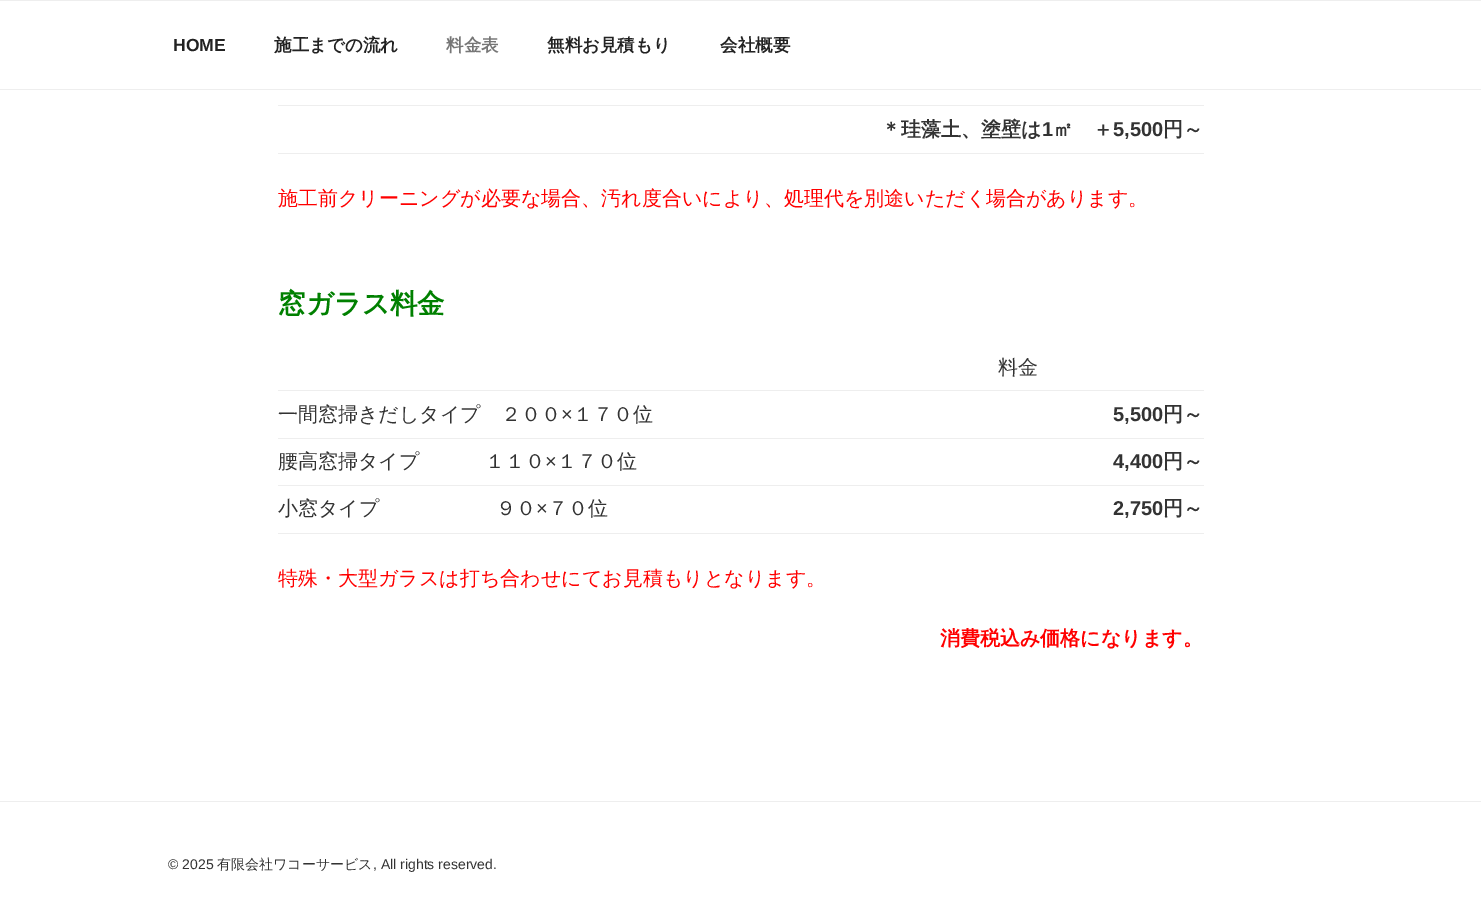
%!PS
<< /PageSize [1481 921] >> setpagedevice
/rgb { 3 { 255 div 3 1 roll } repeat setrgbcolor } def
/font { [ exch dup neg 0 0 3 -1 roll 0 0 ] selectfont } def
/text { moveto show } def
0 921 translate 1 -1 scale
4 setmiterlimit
255 255 255 rgb
0 0 1481 921 rectfill
238 238 238 rgb
0 0 1481 1 rectfill
0 89 1481 1 rectfill
278 105 926 1 rectfill
278 153 926 1 rectfill
278 390 926 1 rectfill
278 438 926 1 rectfill
278 485 926 1 rectfill
278 533 926 1 rectfill
0 801 1481 1 rectfill
/LiberationSans-Bold 17.5 font
34 34 34 rgb
(HOME) 173 51 text
/WenQuanYiZenHei-Bold 17.5 font
(施工までの流れ) 274 51 text
118 118 118 rgb
(料金表) 446 51 text
34 34 34 rgb
(無料お見積もり) 547 51 text
(会社概要) 720 51 text
/WenQuanYiZenHei-Bold 20 font
51 51 51 rgb
(＊珪藻土、塗壁は) 881 136 text
/LiberationSans-Bold 20 font
(1) 1042 136 text
/WenQuanYiZenHei-Bold 20 font
(㎡　＋) 1053 136 text
/LiberationSans-Bold 20 font
(5,500) 1113 136 text
/WenQuanYiZenHei-Bold 20 font
(円～) 1163 136 text
/WenQuanYiZenHei-Medium 20 font
255 0 0 rgb
(施工前クリーニングが必要な場合、汚れ度合いにより、処理代を別途いただく場合があります。) 278 205 text
/WenQuanYiZenHei-Bold 27.5 font
0 128 0 rgb
(窓ガラス料金) 278 313 text
/WenQuanYiZenHei-Medium 20 font
51 51 51 rgb
(料金) 998 374 text
(一間窓掃きだしタイプ　２００) 278 421 text
/LiberationSans-Regular 20 font
(×) 561 421 text
/WenQuanYiZenHei-Medium 20 font
(１７０位) 573 421 text
/LiberationSans-Bold 20 font
(5,500) 1113 421 text
/WenQuanYiZenHei-Bold 20 font
(円～) 1163 421 text
/WenQuanYiZenHei-Medium 20 font
(腰高窓掃タイプ　　　 １１０) 278 468 text
/LiberationSans-Regular 20 font
(×) 545 468 text
/WenQuanYiZenHei-Medium 20 font
(１７０位) 557 468 text
/LiberationSans-Bold 20 font
(4,400) 1113 468 text
/WenQuanYiZenHei-Bold 20 font
(円～) 1163 468 text
/WenQuanYiZenHei-Medium 20 font
(小窓タイプ) 278 515 text
(９０) 496 515 text
/LiberationSans-Regular 20 font
(×) 536 515 text
/WenQuanYiZenHei-Medium 20 font
(７０位) 548 515 text
/LiberationSans-Bold 20 font
(2,750) 1113 515 text
/WenQuanYiZenHei-Bold 20 font
(円～) 1163 515 text
/WenQuanYiZenHei-Medium 20 font
255 0 0 rgb
(特殊・大型ガラスは打ち合わせにてお見積もりとなります。) 278 585 text
/WenQuanYiZenHei-Bold 20 font
(消費税込み価格になります。) 940 645 text
/LiberationSans-Regular 14 font
51 51 51 rgb
(© 2025) 168 869 text
/WenQuanYiZenHei-Medium 14 font
(有限会社ワコーサービス) 217 869 text
/LiberationSans-Regular 14 font
(, All rights reserved.) 373 869 text
showpage
